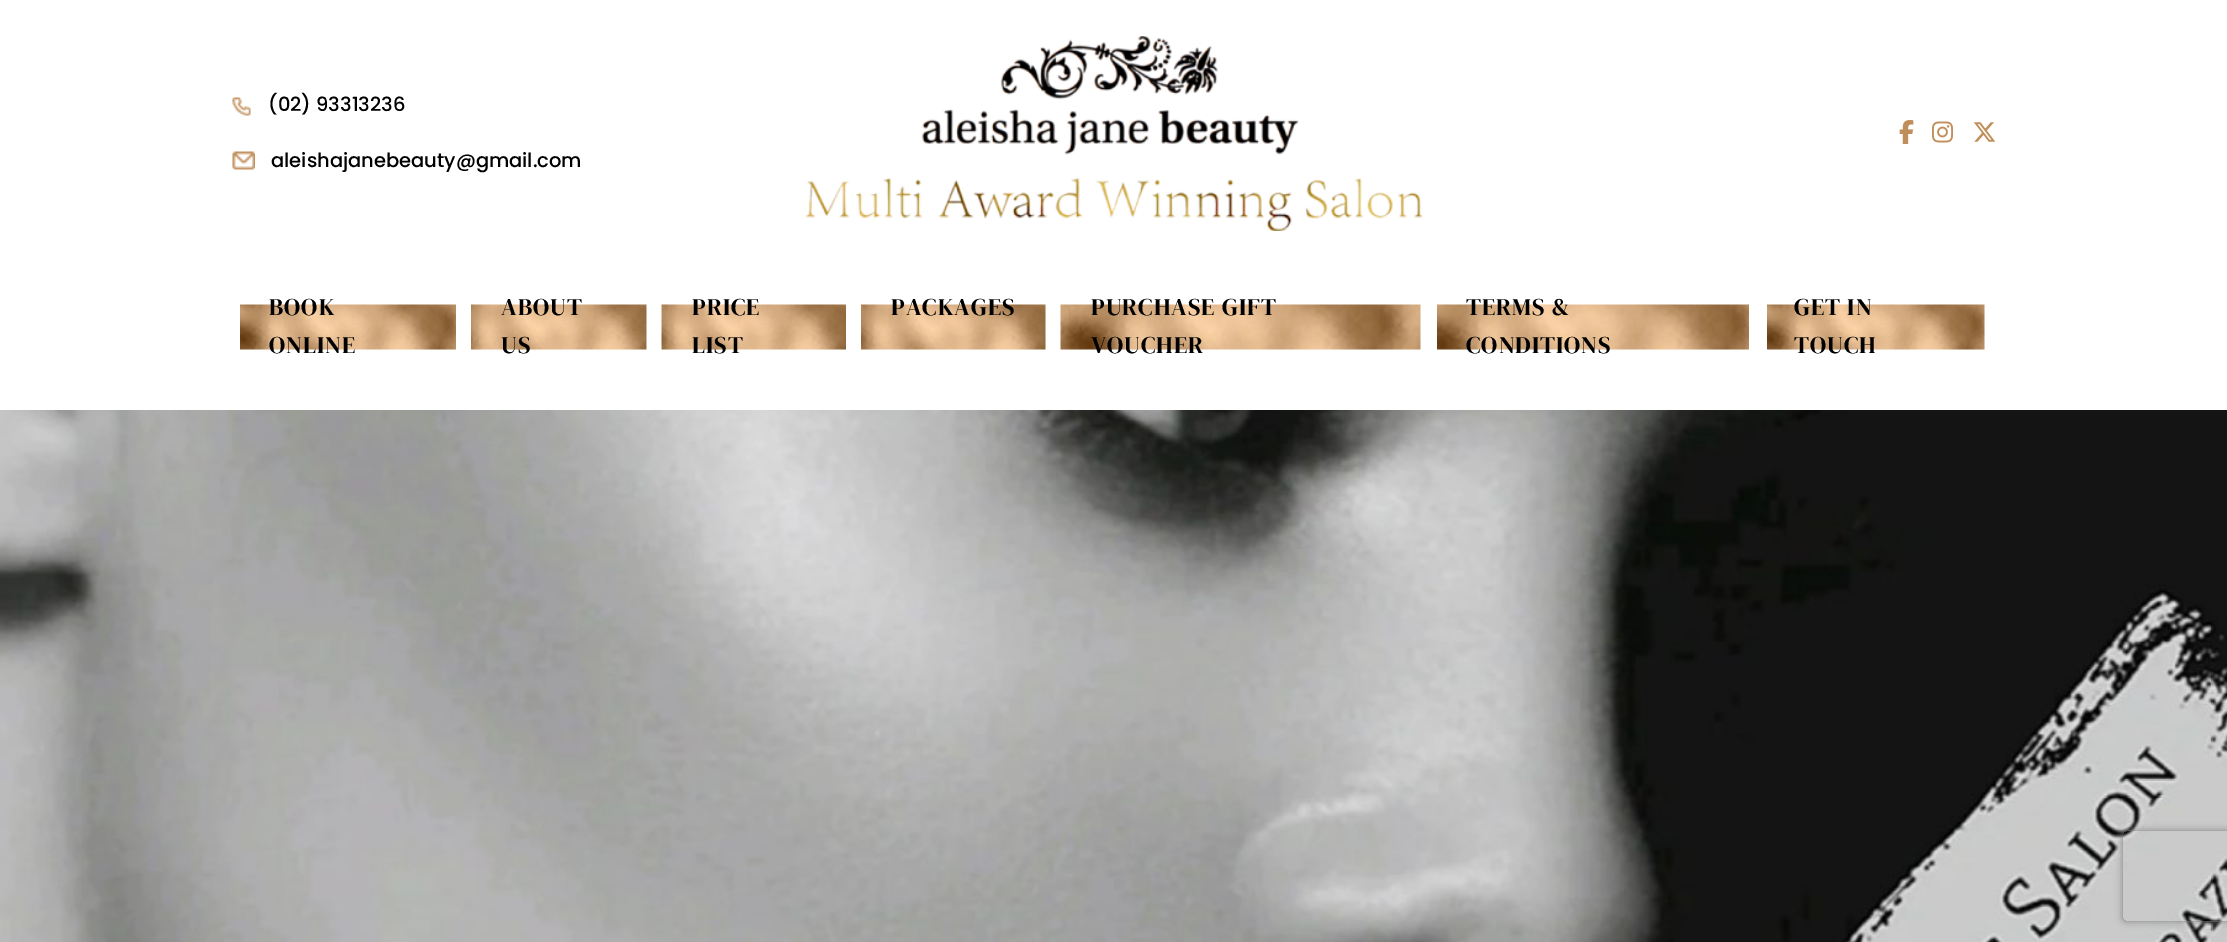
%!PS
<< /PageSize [2227 942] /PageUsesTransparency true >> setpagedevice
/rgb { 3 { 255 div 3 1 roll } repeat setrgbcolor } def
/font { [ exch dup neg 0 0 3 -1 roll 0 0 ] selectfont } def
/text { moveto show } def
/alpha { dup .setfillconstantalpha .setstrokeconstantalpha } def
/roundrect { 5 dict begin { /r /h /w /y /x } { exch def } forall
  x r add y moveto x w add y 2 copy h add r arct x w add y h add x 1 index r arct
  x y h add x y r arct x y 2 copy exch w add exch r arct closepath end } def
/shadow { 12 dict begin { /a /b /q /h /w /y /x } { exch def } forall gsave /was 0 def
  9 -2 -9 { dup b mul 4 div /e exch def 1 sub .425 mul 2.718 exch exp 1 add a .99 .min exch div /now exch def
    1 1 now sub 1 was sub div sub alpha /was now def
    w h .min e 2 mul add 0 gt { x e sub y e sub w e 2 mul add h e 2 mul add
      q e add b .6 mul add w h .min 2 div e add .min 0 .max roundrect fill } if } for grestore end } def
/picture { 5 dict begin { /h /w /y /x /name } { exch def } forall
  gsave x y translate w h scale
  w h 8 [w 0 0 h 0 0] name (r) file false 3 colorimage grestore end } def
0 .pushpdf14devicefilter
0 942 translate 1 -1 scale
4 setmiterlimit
255 255 255 rgb
0 0 2227 942 rectfill
(img_01.rgb) 232 97 19 19 picture
(img_02.rgb) 232 151 23 19 picture
(img_03.rgb) 805 36 617 195 picture
(img_04.rgb) 1899 120 15 24 picture
(img_05.rgb) 1932 121 21 22 picture
(img_06.rgb) 1973 122 23 20 picture
(img_07.rgb) 240 304 216 46 picture
(img_08.rgb) 471 304 176 46 picture
(img_09.rgb) 661 304 185 46 picture
(img_10.rgb) 861 304 185 46 picture
(img_11.rgb) 1060 304 361 46 picture
(img_12.rgb) 1437 304 312 46 picture
(img_13.rgb) 1767 304 218 46 picture
(img_14.rgb) 0 410 2227 532 picture
gsave
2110 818 moveto 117 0 rlineto 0 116 rlineto -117 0 rlineto closepath 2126 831 moveto 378 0 rlineto 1.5 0 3 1.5 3 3 rcurveto 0 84 rlineto 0 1.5 -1.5 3 -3 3 rcurveto -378 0 rlineto -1.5 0 -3 -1.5 -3 -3 rcurveto 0 -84 rlineto 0 -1.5 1.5 -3 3 -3 rcurveto closepath eoclip newpath
128 128 128 rgb
2123 831 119 90 3 4 1 shadow
grestore
/Poppins-Medium 19.5 font
0 0 0 rgb
(\(02\) 93313236) 268 111 text
(aleishajanebeauty@gmail.com) 271 167 text
/DMSerifDisplay-Regular 24 font
269 315 moveto 1 0 (BOOK) ashow
269 353 moveto 1 0 (ONLINE) ashow
501 315 moveto 1 0 (ABOUT) ashow
501 353 moveto 1 0 (US) ashow
692 315 moveto 1 0 (PRICE) ashow
692 353 moveto 1 0 (LIST) ashow
891 315 moveto 1 0 (PACKAGES) ashow
1091 315 moveto 1 0 (PURCHASE GIFT) ashow
1091 353 moveto 1 0 (VOUCHER) ashow
1466 315 moveto 1 0 (TERMS &) ashow
1466 353 moveto 1 0 (CONDITIONS) ashow
1794 315 moveto 1 0 (GET IN) ashow
1794 353 moveto 1 0 (TOUCH) ashow
.poppdf14devicefilter showpage
